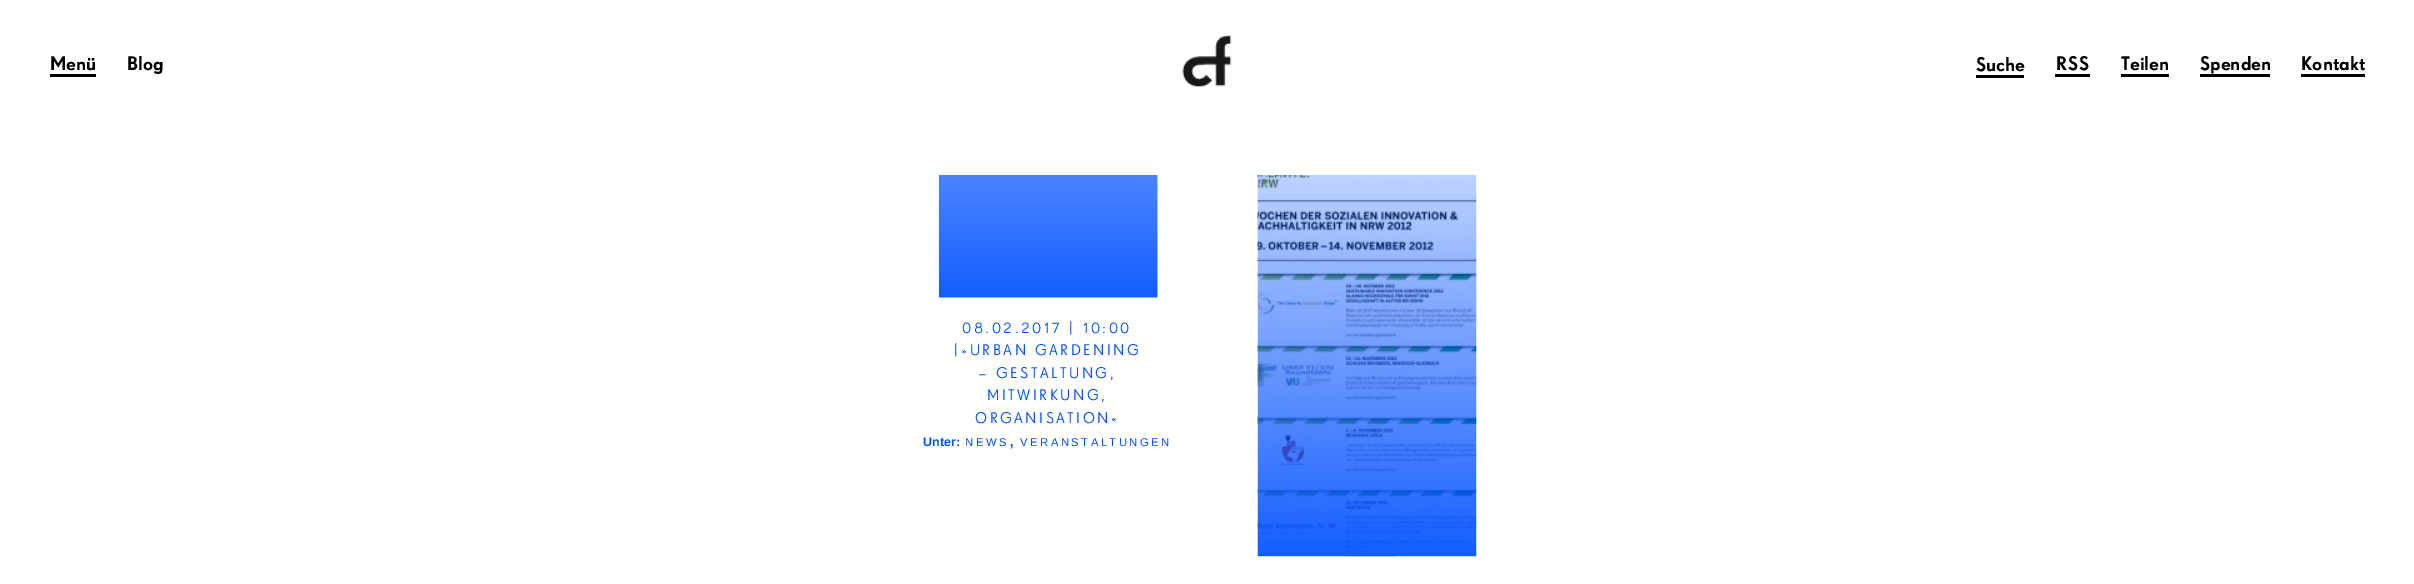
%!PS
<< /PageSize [2414 584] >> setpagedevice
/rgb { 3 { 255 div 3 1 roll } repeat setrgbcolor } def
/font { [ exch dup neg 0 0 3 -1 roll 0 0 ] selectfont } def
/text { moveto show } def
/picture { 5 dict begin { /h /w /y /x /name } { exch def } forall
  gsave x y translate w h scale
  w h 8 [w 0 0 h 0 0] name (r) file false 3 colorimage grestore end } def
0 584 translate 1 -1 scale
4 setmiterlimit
255 255 255 rgb
0 0 2414 584 rectfill
0 0 0 rgb
50 74 46 3 rectfill
(img_01.rgb) 1182 35 50 52 picture
1976 75 48 3 rectfill
2055 74 35 3 rectfill
2121 74 48 3 rectfill
2200 74 70 3 rectfill
2301 74 64 3 rectfill
(img_02.rgb) 938 175 220 123 picture
(img_03.rgb) 1257 175 220 382 picture
(img_04.rgb) 1257 175 220 382 picture
/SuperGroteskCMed-Regular 19 font
(Menü) 50 70 text
(Blog) 127 70 text
(Suche) 1976 71 text
2056 70 moveto 1 0 (RSS) ashow
(Teilen) 2121 70 text
(Spenden) 2200 70 text
(Kontakt) 2301 70 text
/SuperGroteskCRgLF-Regular 15 font
0 80 255 rgb
962 333 moveto 2.5 0 (08.02.2017 | 10:00) ashow
953 355 moveto 2.5 0 (|»URBAN GARDENING) ashow
978 378 moveto 2.5 0 (– GESTALTUNG,) ashow
987 400 moveto 2.5 0 (MITWIRKUNG,) ashow
975 423 moveto 2.5 0 (ORGANISATION«) ashow
/LiberationSans-Bold 12.5 font
(Unter:) 923 446 text
/LiberationSans-Regular 11.25 font
965 446 moveto 2.5 0 (NEWS) ashow
/LiberationSans-Regular 19 font
(,) 1009 446 text
/LiberationSans-Regular 11.25 font
1020 446 moveto 2.5 0 (VERANSTALTUNGEN) ashow
showpage
